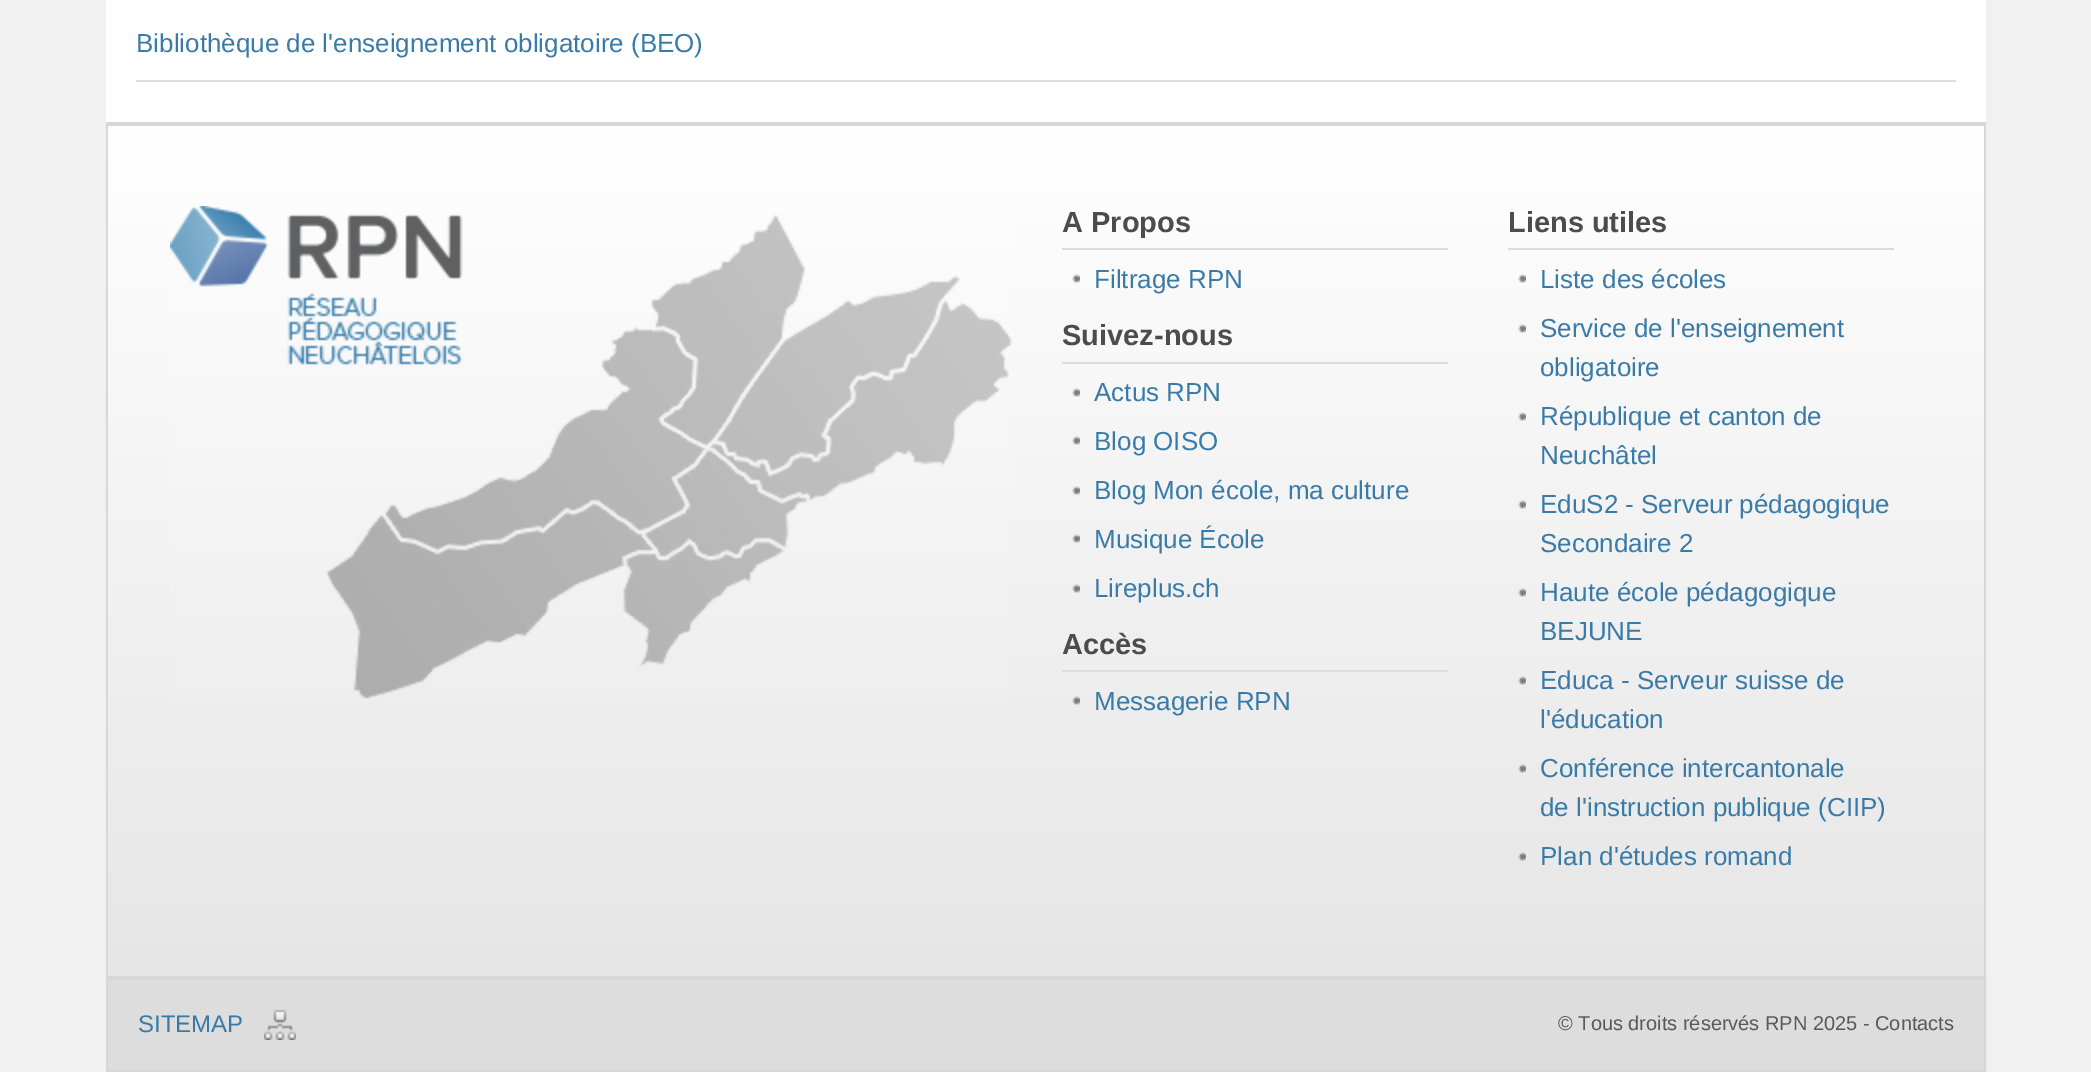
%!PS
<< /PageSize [2091 1072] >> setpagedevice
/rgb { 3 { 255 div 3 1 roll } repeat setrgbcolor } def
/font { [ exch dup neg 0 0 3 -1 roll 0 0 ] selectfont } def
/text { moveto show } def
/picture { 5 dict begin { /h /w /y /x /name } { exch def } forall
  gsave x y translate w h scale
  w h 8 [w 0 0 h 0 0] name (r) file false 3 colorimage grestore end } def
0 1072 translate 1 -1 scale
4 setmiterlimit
241 241 241 rgb
0 0 2091 1072 rectfill
255 255 255 rgb
106 0 1880 122 rectfill
220 220 220 rgb
136 80 1820 2 rectfill
gsave 108 126 moveto 1876 0 rlineto 0 850 rlineto -1876 0 rlineto closepath clip newpath
<< /ShadingType 2 /ColorSpace /DeviceRGB /Coords [1046 126 1046 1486] /Extend [true true] /Function << /FunctionType 2 /Domain [0 1] /C0 [1 1 1] /C1 [0.843 0.843 0.843] /N 1 >> >> shfill grestore
215 215 215 rgb
106 122 1880 4 rectfill
1984 122 2 856 rectfill
106 976 1880 2 rectfill
106 122 2 856 rectfill
(img_01.rgb) 170 206 842 493 picture
220 220 220 rgb
1062 248 386 2 rectfill
(img_02.rgb) 1072 274 8 9 picture
1062 362 386 2 rectfill
(img_03.rgb) 1072 388 8 9 picture
(img_04.rgb) 1072 436 8 9 picture
(img_05.rgb) 1072 486 8 9 picture
(img_06.rgb) 1072 534 8 9 picture
(img_07.rgb) 1072 584 8 9 picture
1062 670 386 2 rectfill
(img_08.rgb) 1072 696 8 9 picture
1508 248 386 2 rectfill
(img_02.rgb) 1518 274 8 9 picture
(img_09.rgb) 1518 324 8 9 picture
(img_10.rgb) 1518 412 8 9 picture
(img_05.rgb) 1518 500 8 9 picture
(img_11.rgb) 1518 588 8 9 picture
(img_12.rgb) 1518 676 8 9 picture
(img_13.rgb) 1518 764 8 9 picture
(img_14.rgb) 1518 852 8 9 picture
221 221 221 rgb
107 979 moveto 1878 0 rlineto 0 92 rlineto -1878 0 rlineto closepath gsave fill grestore
215 215 215 rgb
2 setlinewidth
stroke
(img_15.rgb) 264 1010 32 30 picture
/LiberationSans-Regular 26 font
56 123 169 rgb
(Bibliothèque de l'enseignement obligatoire \(BEO\)) 136 52 text
/LiberationSans-Bold 29 font
76 76 76 rgb
(A Propos) 1062 232 text
/LiberationSans-Regular 26 font
56 123 169 rgb
(Filtrage RPN) 1094 288 text
/LiberationSans-Bold 29 font
76 76 76 rgb
(Suivez-nous) 1062 345 text
/LiberationSans-Regular 26 font
56 123 169 rgb
(Actus RPN) 1094 401 text
(Blog OISO) 1094 450 text
(Blog Mon école, ma culture) 1094 499 text
(Musique École) 1094 548 text
(Lireplus.ch) 1094 597 text
/LiberationSans-Bold 29 font
76 76 76 rgb
(Accès) 1062 654 text
/LiberationSans-Regular 26 font
56 123 169 rgb
(Messagerie RPN) 1094 710 text
/LiberationSans-Bold 29 font
76 76 76 rgb
(Liens utiles) 1508 232 text
/LiberationSans-Regular 26 font
56 123 169 rgb
(Liste des écoles) 1540 288 text
(Service de l'enseignement) 1540 337 text
(obligatoire) 1540 376 text
(République et canton de) 1540 425 text
(Neuchâtel) 1540 464 text
(EduS2 - Serveur pédagogique) 1540 513 text
(Secondaire 2) 1540 552 text
(Haute école pédagogique) 1540 601 text
(BEJUNE) 1540 640 text
(Educa - Serveur suisse de) 1540 689 text
(l'éducation) 1540 728 text
(Conférence intercantonale) 1540 777 text
(de l'instruction publique \(CIIP\)) 1540 816 text
(Plan d'études romand) 1540 865 text
/LiberationSans-Regular 24 font
(SITEMAP) 138 1032 text
/LiberationSans-Regular 20 font
89 89 89 rgb
(© Tous droits réservés RPN 2025 - Contacts) 1558 1030 text
showpage
